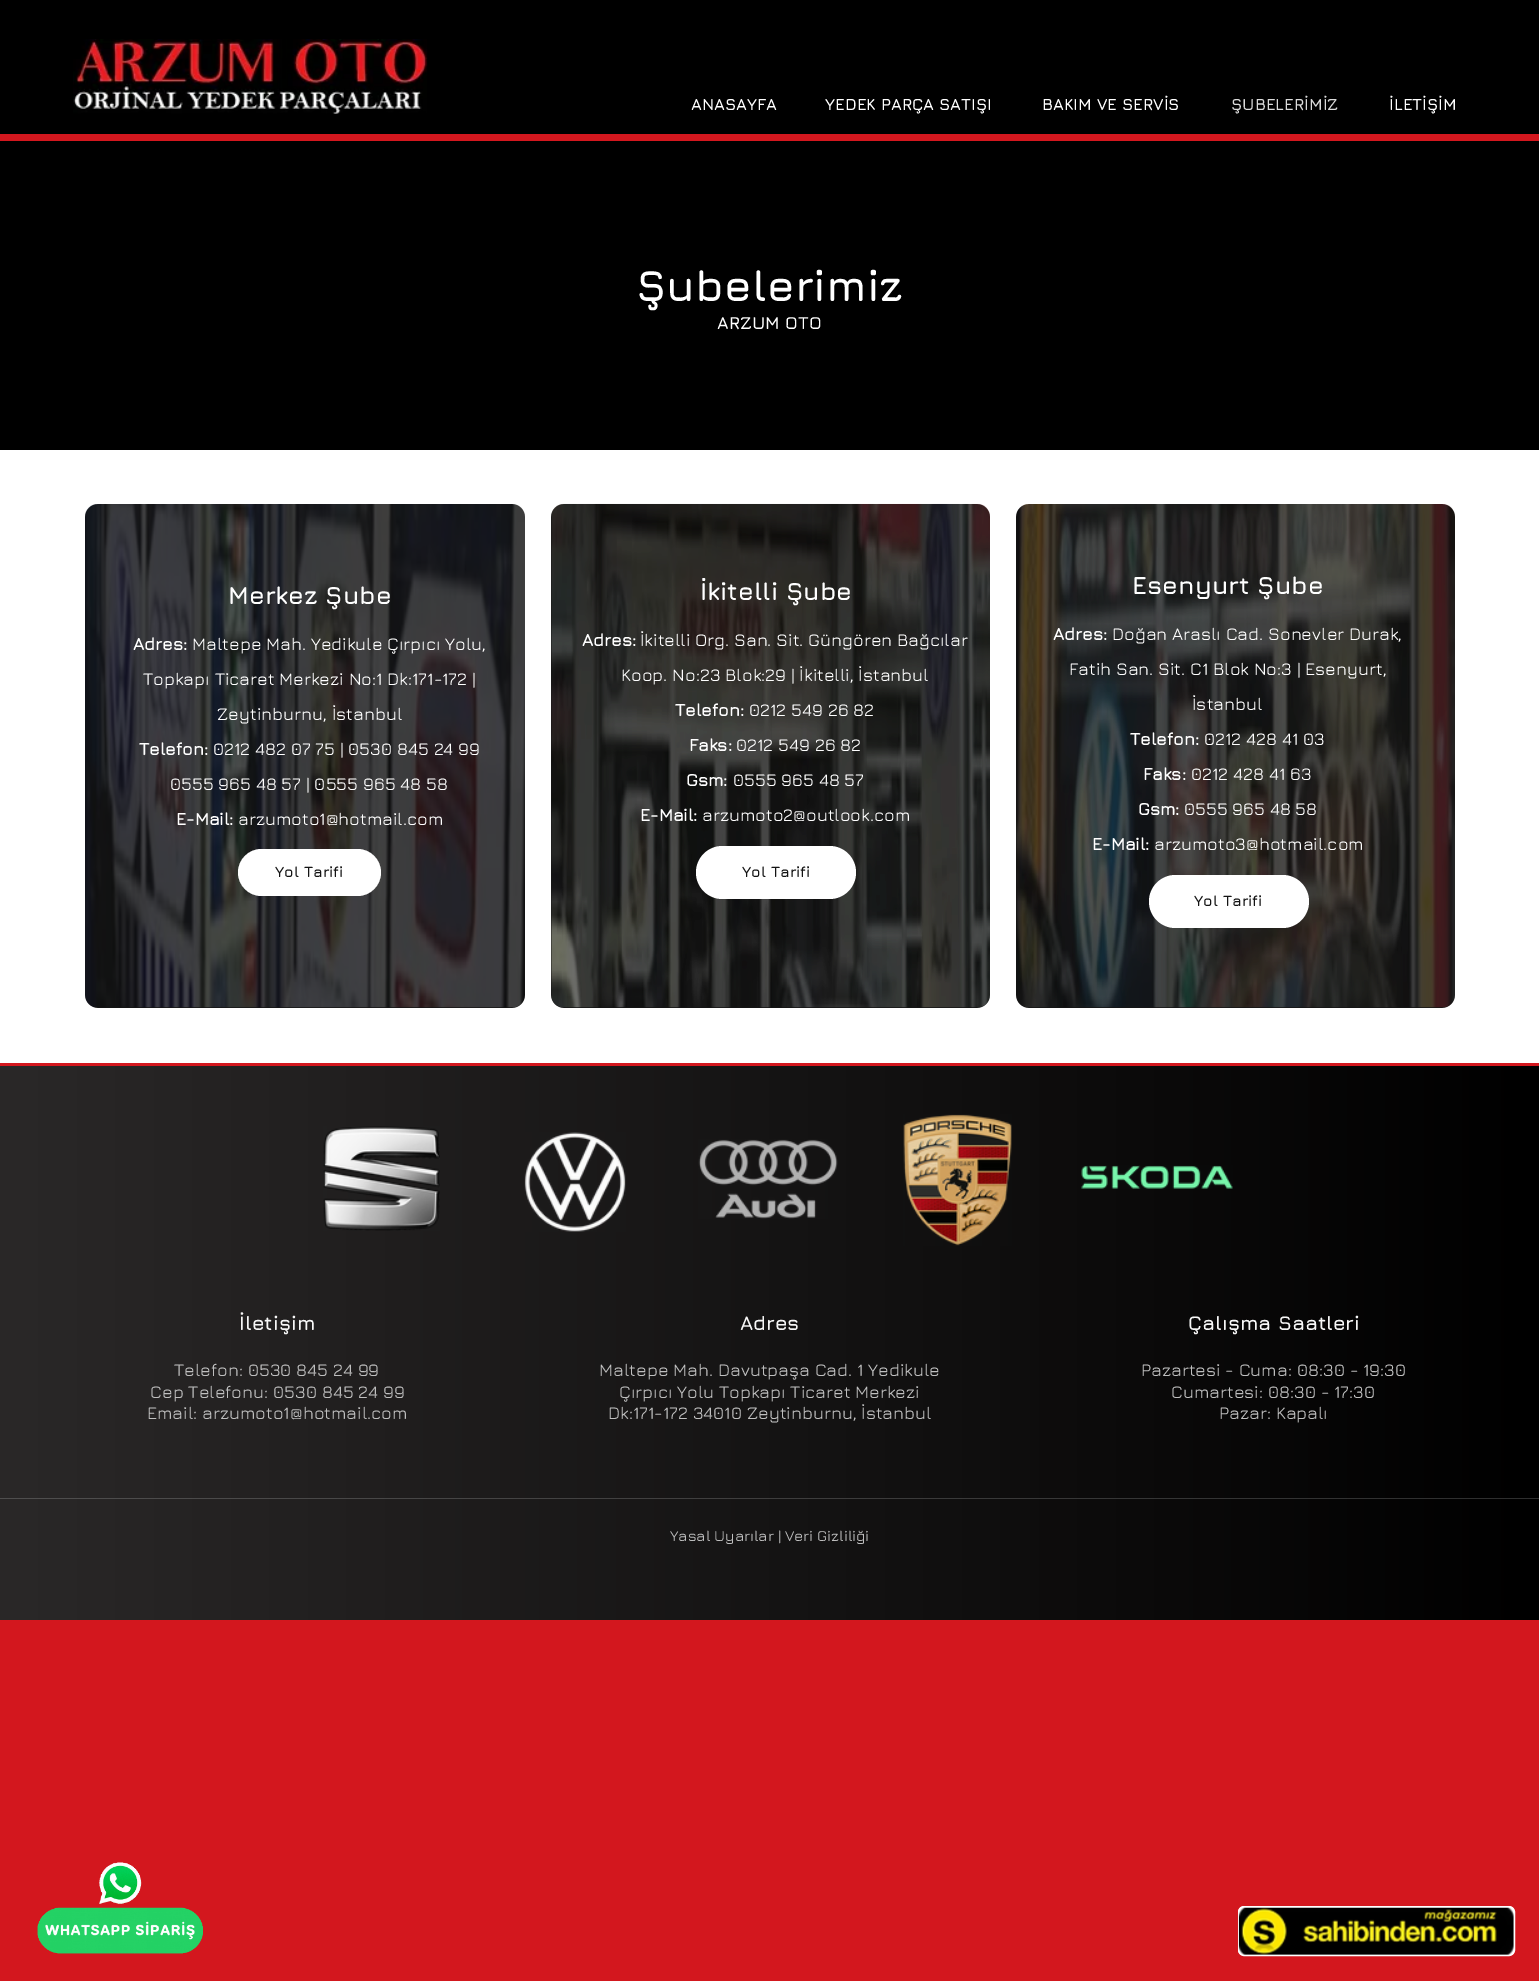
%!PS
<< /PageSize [1539 1981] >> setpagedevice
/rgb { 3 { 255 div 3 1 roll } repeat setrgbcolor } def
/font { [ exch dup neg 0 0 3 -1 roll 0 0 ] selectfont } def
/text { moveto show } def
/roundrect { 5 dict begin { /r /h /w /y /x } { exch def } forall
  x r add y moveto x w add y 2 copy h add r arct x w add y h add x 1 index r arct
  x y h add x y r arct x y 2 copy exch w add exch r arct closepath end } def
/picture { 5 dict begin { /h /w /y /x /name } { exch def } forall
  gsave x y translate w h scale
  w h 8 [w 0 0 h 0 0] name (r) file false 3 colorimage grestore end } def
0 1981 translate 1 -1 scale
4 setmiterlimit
211 23 30 rgb
0 0 1539 1981 rectfill
0 0 0 rgb
0 0 1539 134 rectfill
(img_01.rgb) 73 39 355 75 picture
0 141 1539 309 rectfill
255 255 255 rgb
0 450 1539 613 rectfill
20 20 20 rgb
85 504 440 504 13 roundrect fill
(img_02.rgb) 85 504 440 504 picture
255 255 255 rgb
238 849 143 47 23.5 roundrect fill
20 20 20 rgb
551 504 439 504 13 roundrect fill
(img_03.rgb) 551 503 439 505 picture
255 255 255 rgb
696 846 160 53 26.5 roundrect fill
20 20 20 rgb
1016 504 439 504 13 roundrect fill
(img_04.rgb) 1016 504 439 504 picture
255 255 255 rgb
1149 875 160 53 26.5 roundrect fill
gsave 0 1066 moveto 1539 0 rlineto 0 554 rlineto -1539 0 rlineto closepath clip newpath
<< /ShadingType 2 /ColorSpace /DeviceRGB /Coords [0 1343 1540 1343] /Extend [true true] /Function << /FunctionType 2 /Domain [0 1] /C0 [0.165 0.157 0.157] /C1 [0 0 0] /N 1 >> >> shfill grestore
gsave 0 1498 moveto 1539 0 rlineto 0 1 rlineto -1539 0 rlineto closepath clip newpath
<< /ShadingType 2 /ColorSpace /DeviceRGB /Coords [0 1343 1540 1343] /Extend [true true] /Function << /FunctionType 2 /Domain [0 1] /C0 [0.314 0.31 0.31] /C1 [0.18 0.18 0.18] /N 1 >> >> shfill grestore
(img_05.rgb) 323 1126 117 105 picture
(img_06.rgb) 524 1132 102 100 picture
(img_07.rgb) 698 1139 140 80 picture
(img_08.rgb) 903 1114 109 132 picture
(img_09.rgb) 1081 1165 152 24 picture
(img_10.rgb) 37 1862 166 92 picture
1238.5 1906.5 276 49 5.5 roundrect gsave fill grestore
stroke
(img_11.rgb) 1238 1907 276 48 picture
/Jura-Bold 16.25 font
(ANASAYFA) 691 110 text
(YEDEK PARÇA SATIŞI) 825 110 text
(BAKIM VE SERVİS) 1042 110 text
219 219 219 rgb
(ŞUBELERİMİZ) 1231 110 text
255 255 255 rgb
(İLETİŞİM) 1389 110 text
/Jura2-Bold 43.75 font
(Şubelerimiz) 636 301 text
/Jura2-Bold 17.5 font
(ARZUM OTO) 717 329 text
/Jura2-Bold 25 font
(Merkez Şube) 228 604 text
/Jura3-Bold 17.5 font
(Adres:) 133 650 text
/Jura-Medium 17.5 font
(Maltepe Mah. Yedikule Çırpıcı Yolu,) 192 650 text
(Topkapı Ticaret Merkezi No:1 Dk:171-172 |) 143 685 text
(Zeytinburnu, İstanbul) 217 720 text
/Jura3-Bold 17.5 font
(Telefon:) 139 755 text
/Jura-Medium 17.5 font
(0212 482 07 75 | 0530 845 24 99) 213 755 text
(0555 965 48 57 | 0555 965 48 58) 170 790 text
/Jura3-Bold 17.5 font
(E-Mail:) 176 825 text
/Jura-Medium 17.5 font
(arzumoto1@hotmail.com) 238 825 text
/Jura2-Bold 15 font
20 20 20 rgb
(Yol Tarifi) 275 877 text
/Jura2-Bold 25 font
255 255 255 rgb
(İkitelli Şube) 700 600 text
/Jura3-Bold 17.5 font
(Adres:) 582 646 text
/Jura-Medium 17.5 font
(İkitelli Org. San. Sit. Güngören Bağcılar) 640 646 text
(Koop. No:23 Blok:29 | İkitelli, İstanbul) 621 681 text
/Jura3-Bold 17.5 font
(Telefon:) 675 716 text
/Jura-Medium 17.5 font
(0212 549 26 82) 749 716 text
/Jura3-Bold 17.5 font
(Faks:) 689 751 text
/Jura-Medium 17.5 font
(0212 549 26 82) 736 751 text
/Jura3-Bold 17.5 font
(Gsm:) 686 786 text
/Jura-Medium 17.5 font
(0555 965 48 57) 733 786 text
/Jura3-Bold 17.5 font
(E-Mail:) 640 821 text
/Jura-Medium 17.5 font
(arzumoto2@outlook.com) 702 821 text
/Jura2-Bold 15 font
20 20 20 rgb
(Yol Tarifi) 742 877 text
/Jura2-Bold 25 font
255 255 255 rgb
(Esenyurt Şube) 1132 594 text
/Jura3-Bold 17.5 font
(Adres:) 1053 640 text
/Jura-Medium 17.5 font
(Doğan Araslı Cad. Sonevler Durak,) 1112 640 text
(Fatih San. Sit. C1 Blok No:3 | Esenyurt,) 1069 675 text
(İstanbul) 1192 710 text
/Jura3-Bold 17.5 font
(Telefon:) 1130 745 text
/Jura-Medium 17.5 font
(0212 428 41 03) 1204 745 text
/Jura3-Bold 17.5 font
(Faks:) 1143 780 text
/Jura-Medium 17.5 font
(0212 428 41 63) 1191 780 text
/Jura3-Bold 17.5 font
(Gsm:) 1138 815 text
/Jura-Medium 17.5 font
(0555 965 48 58) 1184 815 text
/Jura3-Bold 17.5 font
(E-Mail:) 1092 850 text
/Jura-Medium 17.5 font
(arzumoto3@hotmail.com) 1154 850 text
/Jura2-Bold 15 font
20 20 20 rgb
(Yol Tarifi) 1194 906 text
/Jura2-Bold 20 font
247 247 247 rgb
(İletişim) 239 1330 text
(Adres) 740 1330 text
(Çalışma Saatleri) 1188 1330 text
/Jura-Medium 17.5 font
191 191 191 rgb
(Telefon: 0530 845 24 99) 174 1376 text
(Cep Telefonu: 0530 845 24 99) 150 1398 text
(Email: arzumoto1@hotmail.com) 147 1419 text
(Maltepe Mah. Davutpaşa Cad. 1 Yedikule) 599 1376 text
(Çırpıcı Yolu Topkapı Ticaret Merkezi) 619 1398 text
(Dk:171-172 34010 Zeytinburnu, İstanbul) 608 1419 text
(Pazartesi - Cuma: 08:30 - 19:30) 1141 1376 text
(Cumartesi: 08:30 - 17:30) 1171 1398 text
(Pazar: Kapalı) 1219 1419 text
/Jura-Medium 15 font
(Yasal Uyarılar | Veri Gizliliği) 670 1541 text
showpage
